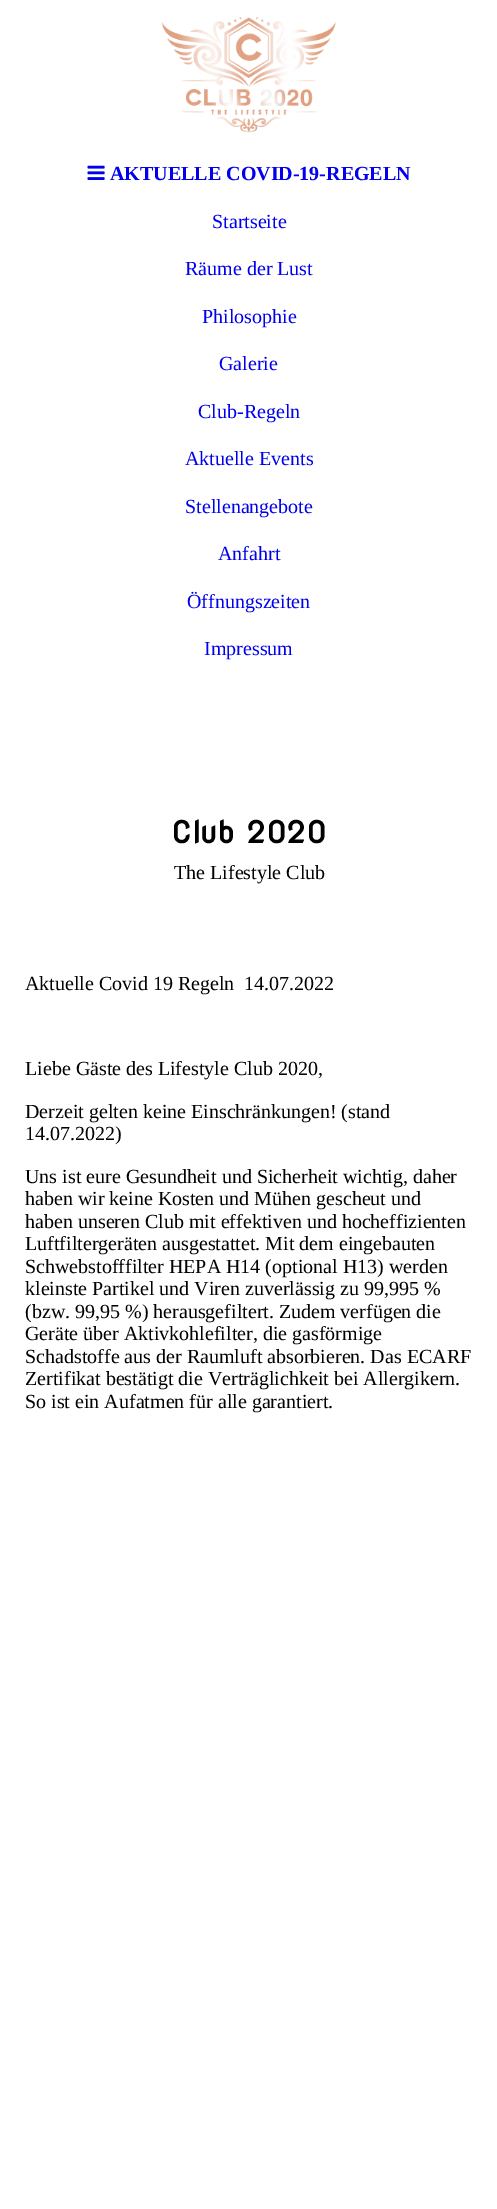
%!PS
<< /PageSize [497 2209] >> setpagedevice
/rgb { 3 { 255 div 3 1 roll } repeat setrgbcolor } def
/font { [ exch dup neg 0 0 3 -1 roll 0 0 ] selectfont } def
/text { moveto show } def
/picture { 5 dict begin { /h /w /y /x /name } { exch def } forall
  gsave x y translate w h scale
  w h 8 [w 0 0 h 0 0] name (r) file false 3 colorimage grestore end } def
0 2209 translate 1 -1 scale
4 setmiterlimit
255 255 255 rgb
0 0 497 2209 rectfill
(img_01.rgb) 162 17 174 116 picture
(img_02.rgb) 87 165 18 15 picture
/LiberationSerif-Bold 20 font
0 0 238 rgb
(AKTUELLE COVID-19-REGELN) 110 180 text
/LiberationSerif-Regular 20 font
(Startseite) 212 228 text
(Räume der Lust) 185 275 text
(Philosophie) 202 323 text
(Galerie) 219 370 text
(Club-Regeln) 198 418 text
(Aktuelle Events) 185 465 text
(Stellenangebote) 185 513 text
(Anfahrt) 218 560 text
(Öffnungszeiten) 187 608 text
(Impressum) 204 655 text
/NovaRound-Bold 30 font
0 0 0 rgb
(Club 2020) 171 843 text
/LiberationSerif-Regular 20 font
(The Lifestyle Club) 174 879 text
(Aktuelle Covid 19 Regeln  14.07.2022) 25 990 text
(Liebe Gäste des Lifestyle Club 2020,) 25 1075 text
(Derzeit gelten keine Einschränkungen! \(stand) 25 1118 text
(14.07.2022\)) 25 1140 text
(Uns ist eure Gesundheit und Sicherheit wichtig, daher) 25 1183 text
(haben wir keine Kosten und Mühen gescheut und) 25 1205 text
(haben unseren Club mit effektiven und hocheffizienten) 25 1228 text
(Luftfiltergeräten ausgestattet. Mit dem eingebauten) 25 1250 text
(Schwebstofffilter HEPA H14 \(optional H13\) werden) 25 1273 text
(kleinste Partikel und Viren zuverlässig zu 99,995 %) 25 1295 text
(\(bzw. 99,95 %\) herausgefiltert. Zudem verfügen die) 25 1318 text
(Geräte über Aktivkohlefilter, die gasförmige) 25 1340 text
(Schadstoffe aus der Raumluft absorbieren. Das ECARF) 25 1363 text
(Zertifikat bestätigt die Verträglichkeit bei Allergikern.) 25 1385 text
(So ist ein Aufatmen für alle garantiert.) 25 1408 text
showpage
